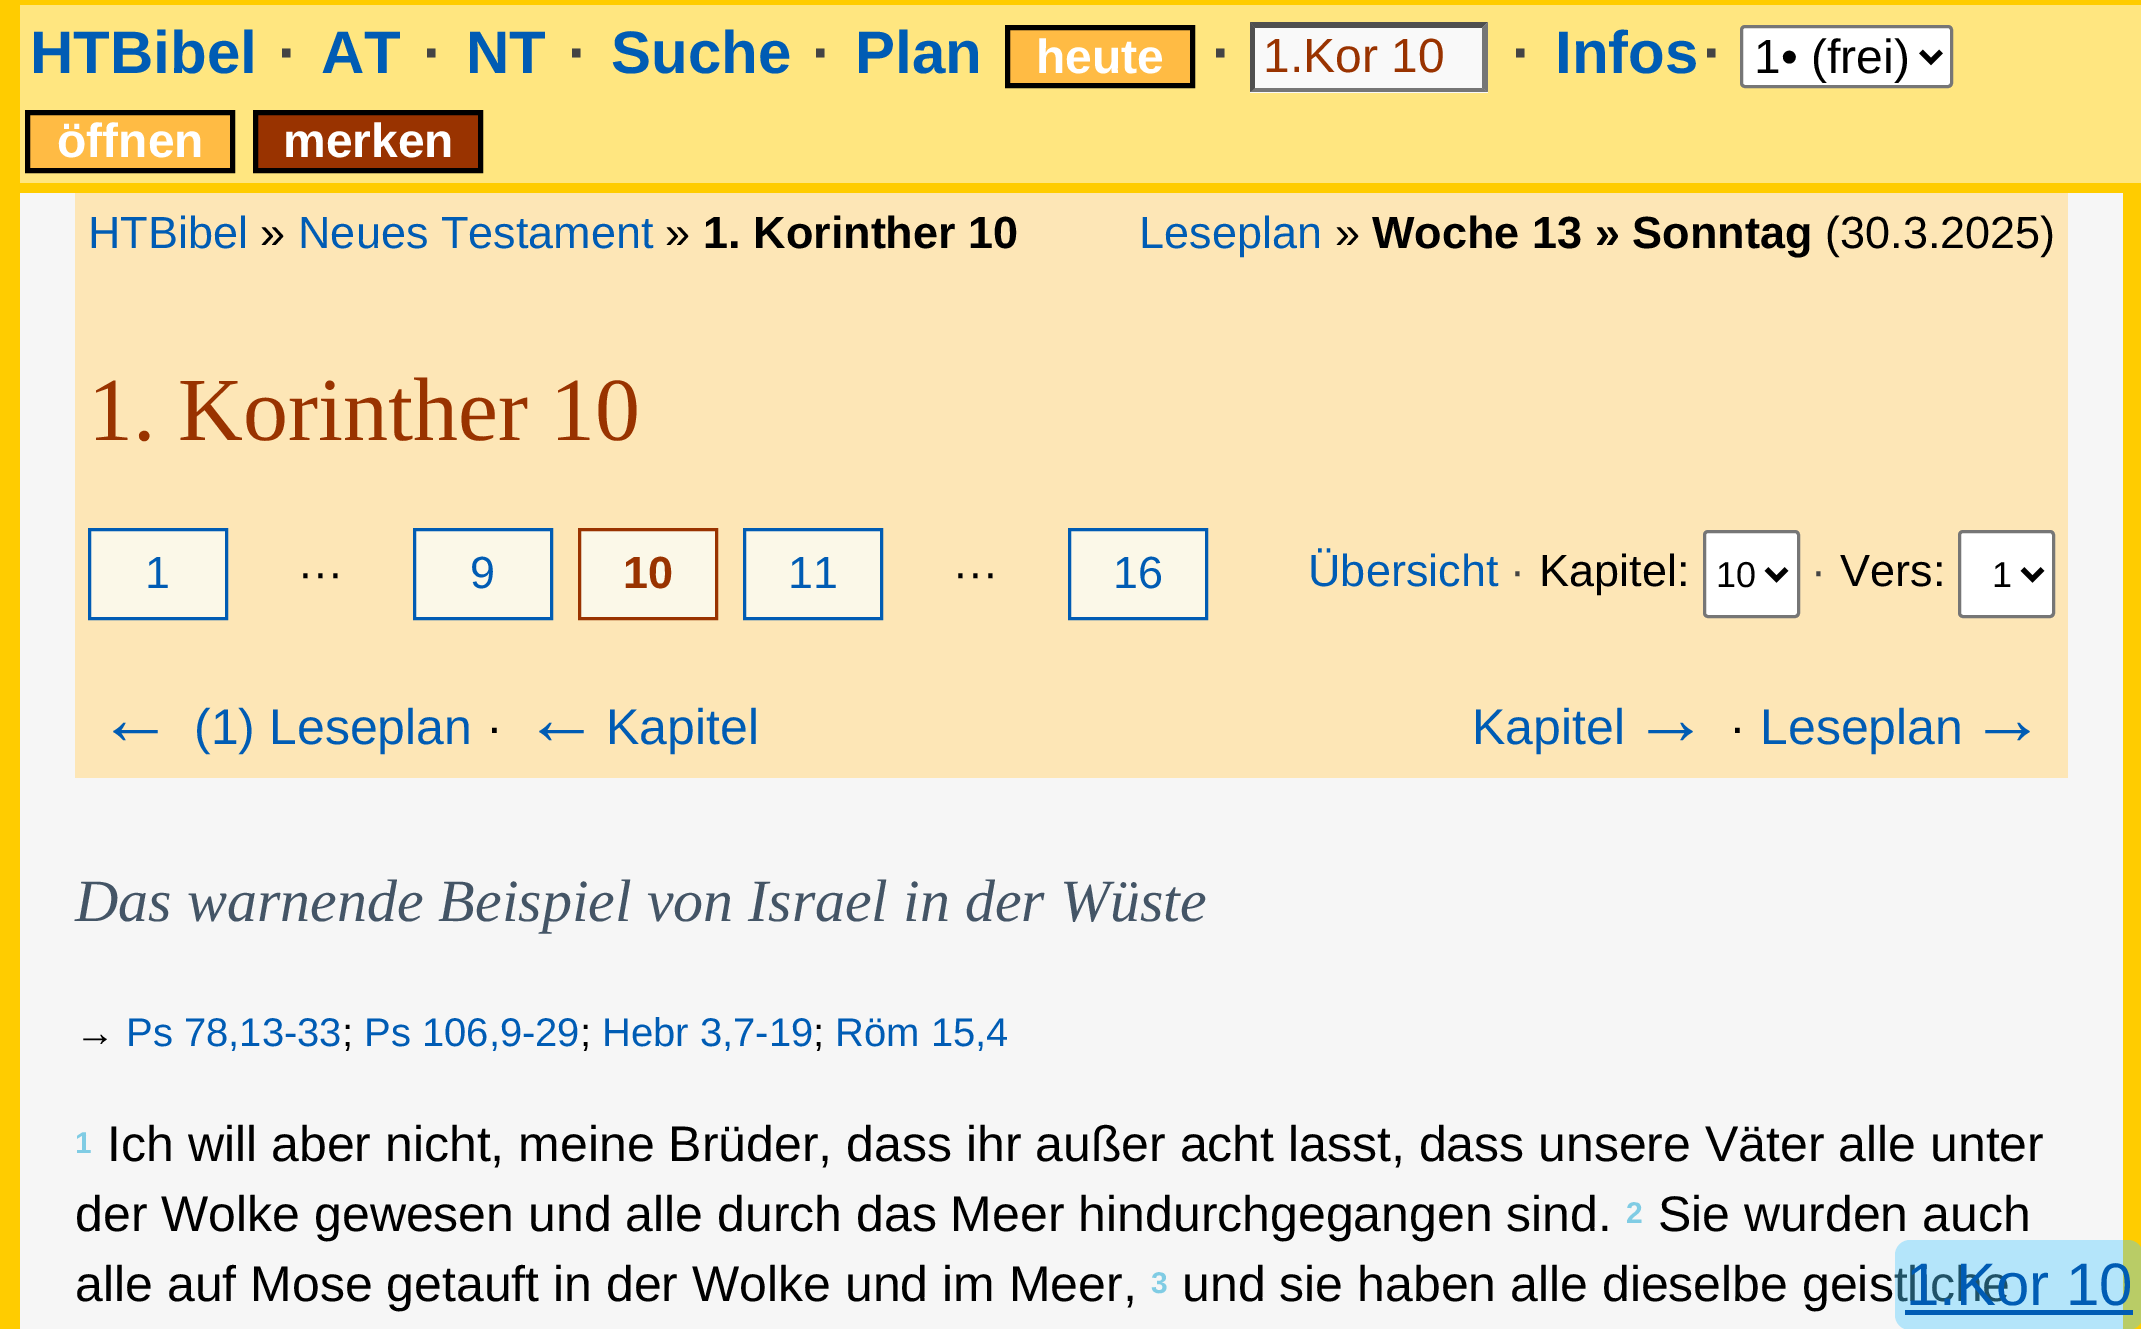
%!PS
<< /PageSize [2141 1329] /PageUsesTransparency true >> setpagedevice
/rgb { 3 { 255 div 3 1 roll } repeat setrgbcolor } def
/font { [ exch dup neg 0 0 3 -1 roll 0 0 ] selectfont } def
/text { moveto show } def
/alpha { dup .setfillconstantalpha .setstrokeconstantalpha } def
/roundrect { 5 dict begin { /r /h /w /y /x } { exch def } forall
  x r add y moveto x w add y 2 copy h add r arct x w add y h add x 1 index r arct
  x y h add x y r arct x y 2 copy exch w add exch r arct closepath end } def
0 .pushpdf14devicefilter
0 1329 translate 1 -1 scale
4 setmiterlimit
255 204 0 rgb
0 0 2141 1329 rectfill
255 230 128 rgb
20 5 2121 178 rectfill
255 187 68 rgb
1007.5 27.5 moveto 185 0 rlineto 0 58 rlineto -185 0 rlineto closepath gsave fill grestore
0 0 0 rgb
5 setlinewidth
stroke
255 255 255 rgb
1741.5 26.5 210 60 3.5 roundrect gsave fill grestore
118 118 118 rgb
3 setlinewidth
stroke
0 0 0 rgb
5 setlinewidth
1921 51.5 moveto 10 10 rlineto 10 -10 rlineto stroke
255 187 68 rgb
27.5 112.5 moveto 205 0 rlineto 0 58 rlineto -205 0 rlineto closepath gsave fill grestore
0 0 0 rgb
stroke
153 51 0 rgb
255.5 112.5 moveto 225 0 rlineto 0 58 rlineto -225 0 rlineto closepath gsave fill grestore
0 0 0 rgb
stroke
249 249 249 rgb
1250 23 238 70 rectfill
79 79 79 rgb
1250 22 moveto 238 0 rlineto -6 6 rlineto -227 0 rlineto closepath fill
118 118 118 rgb
1488 22 moveto 0 70 rlineto -6 -4 rlineto 0 -60 rlineto closepath fill
1488 92 moveto -238 0 rlineto 5 -4 rlineto 227 0 rlineto closepath fill
79 79 79 rgb
1250 92 moveto 0 -70 rlineto 5 6 rlineto 0 60 rlineto closepath fill
246 246 246 rgb
20 193 2103 1136 rectfill
253 230 182 rgb
75 193 1993 585 rectfill
251 248 232 rgb
89.5 529.5 moveto 137 0 rlineto 0 89 rlineto -137 0 rlineto closepath gsave fill grestore
0 92 180 rgb
3 setlinewidth
stroke
251 248 232 rgb
414.5 529.5 moveto 137 0 rlineto 0 89 rlineto -137 0 rlineto closepath gsave fill grestore
0 92 180 rgb
stroke
251 248 232 rgb
579.5 529.5 moveto 137 0 rlineto 0 89 rlineto -137 0 rlineto closepath gsave fill grestore
153 51 0 rgb
stroke
251 248 232 rgb
744.5 529.5 moveto 137 0 rlineto 0 89 rlineto -137 0 rlineto closepath gsave fill grestore
0 92 180 rgb
stroke
251 248 232 rgb
1069.5 529.5 moveto 137 0 rlineto 0 89 rlineto -137 0 rlineto closepath gsave fill grestore
0 92 180 rgb
stroke
255 255 255 rgb
1704.5 531.5 94 85 3.5 roundrect gsave fill grestore
118 118 118 rgb
stroke
0 0 0 rgb
5 setlinewidth
1766.5 569 moveto 10 10 rlineto 10 -10 rlineto stroke
255 255 255 rgb
1959.5 531.5 94 85 3.5 roundrect gsave fill grestore
118 118 118 rgb
3 setlinewidth
stroke
0 0 0 rgb
5 setlinewidth
2022.5 569 moveto 10 10 rlineto 10 -10 rlineto stroke
/LiberationSans-Bold 60 font
0 92 180 rgb
(HTBibel) 30 73 text
68 68 68 rgb
(·) 278 73 text
0 92 180 rgb
(AT) 321 73 text
68 68 68 rgb
(·) 423 73 text
0 92 180 rgb
(NT) 466 73 text
68 68 68 rgb
(·) 568 73 text
0 92 180 rgb
(Suche) 611 73 text
68 68 68 rgb
(·) 812 73 text
0 92 180 rgb
(Plan) 855 73 text
/LiberationSans-Bold 48 font
255 255 255 rgb
(heute) 1036 73 text
/LiberationSans-Bold 60 font
68 68 68 rgb
(·) 1512 73 text
0 92 180 rgb
(Infos) 1555 73 text
68 68 68 rgb
(·) 1703 73 text
/LiberationSans-Regular 48 font
0 0 0 rgb
(1• \(frei\)) 1754 73 text
/LiberationSans-Bold 48 font
255 255 255 rgb
(öffnen) 57 157 text
(merken) 283 157 text
/LiberationSans-Bold 60 font
68 68 68 rgb
(·) 1212 73 text
/LiberationSans-Regular 48 font
153 51 0 rgb
(1.Kor 10) 1263 72 text
/LiberationSans-Regular 45 font
0 92 180 rgb
(HTBibel) 88 248 text
0 0 0 rgb
(») 260 248 text
0 92 180 rgb
(Neues Testament) 298 248 text
0 0 0 rgb
(») 665 248 text
/LiberationSans-Bold 45 font
(1. Korinther 10) 703 248 text
/LiberationSans-Regular 45 font
0 92 180 rgb
(Leseplan) 1139 248 text
0 0 0 rgb
(») 1335 248 text
/LiberationSans-Bold 45 font
(Woche 13 » Sonntag) 1372 248 text
/LiberationSans-Regular 45 font
(\(30.3.2025\)) 1825 248 text
/LiberationSerif-Regular 90 font
153 51 0 rgb
(1. Korinther 10) 88 440 text
/LiberationSans-Regular 45 font
0 92 180 rgb
(1) 145 588 text
0 0 0 rgb
(···) 298 588 text
0 92 180 rgb
(9) 470 588 text
/LiberationSans-Bold 45 font
153 51 0 rgb
(10) 623 588 text
/LiberationSans-Regular 45 font
0 92 180 rgb
(11) 788 588 text
0 0 0 rgb
(···) 953 588 text
0 92 180 rgb
(16) 1113 588 text
(Übersicht) 1308 586 text
68 68 68 rgb
(·) 1510 586 text
0 0 0 rgb
(Kapitel:) 1539 586 text
/LiberationSans-Regular 36 font
(10) 1716 587 text
/LiberationSans-Regular 45 font
68 68 68 rgb
(·) 1811 586 text
0 0 0 rgb
(Vers:) 1840 586 text
/LiberationSans-Regular 36 font
(1) 1992 587 text
/LiberationSans-Regular 75 font
0 92 180 rgb
(←) 98 744 text
/LiberationSans-Regular 50 font
(\(1\) Leseplan) 194 744 text
0 0 0 rgb
(·) 486 744 text
/LiberationSans-Regular 75 font
0 92 180 rgb
(←) 524 744 text
/LiberationSans-Regular 50 font
(Kapitel) 606 744 text
(Kapitel) 1472 744 text
/LiberationSans-Regular 75 font
(→) 1633 744 text
/LiberationSans-Regular 50 font
0 0 0 rgb
(·) 1729 744 text
0 92 180 rgb
(Leseplan) 1760 744 text
/LiberationSans-Regular 75 font
(→) 1970 744 text
/LiberationSerif-Italic 60 font
68 85 102 rgb
(Das warnende Beispiel von Israel in der Wüste) 75 921 text
/LiberationSans-Regular 40 font
0 0 0 rgb
(→) 75 1046 text
0 92 180 rgb
(Ps 78,13-33) 126 1046 text
0 0 0 rgb
(;) 342 1046 text
0 92 180 rgb
(Ps 106,9-29) 364 1046 text
0 0 0 rgb
(;) 580 1046 text
0 92 180 rgb
(Hebr 3,7-19) 602 1046 text
0 0 0 rgb
(;) 813 1046 text
0 92 180 rgb
(Röm 15,4) 835 1046 text
/LiberationSans-Bold 30 font
128 204 228 rgb
(1) 75 1153 text
/LiberationSans-Regular 50 font
0 0 0 rgb
(Ich will aber nicht, meine Brüder, dass ihr außer acht lasst, dass unsere Väter alle unter) 107 1161 text
(der Wolke gewesen und alle durch das Meer hindurchgegangen sind.) 75 1231 text
/LiberationSans-Bold 30 font
128 204 228 rgb
(2) 1626 1223 text
/LiberationSans-Regular 50 font
0 0 0 rgb
(Sie wurden auch) 1658 1231 text
(alle auf Mose getauft in der Wolke und im Meer,) 75 1301 text
/LiberationSans-Bold 30 font
128 204 228 rgb
(3) 1151 1293 text
/LiberationSans-Regular 50 font
0 0 0 rgb
(und sie haben alle dieselbe geistliche) 1182 1301 text
0.4 alpha
80 204 255 rgb
1895 1240 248 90 15 roundrect fill
/LiberationSans-Regular 60 font
1 alpha
0 92 180 rgb
(1.Kor 10) 1906 1305 text
1905 1310 228 5 rectfill
.poppdf14devicefilter showpage
